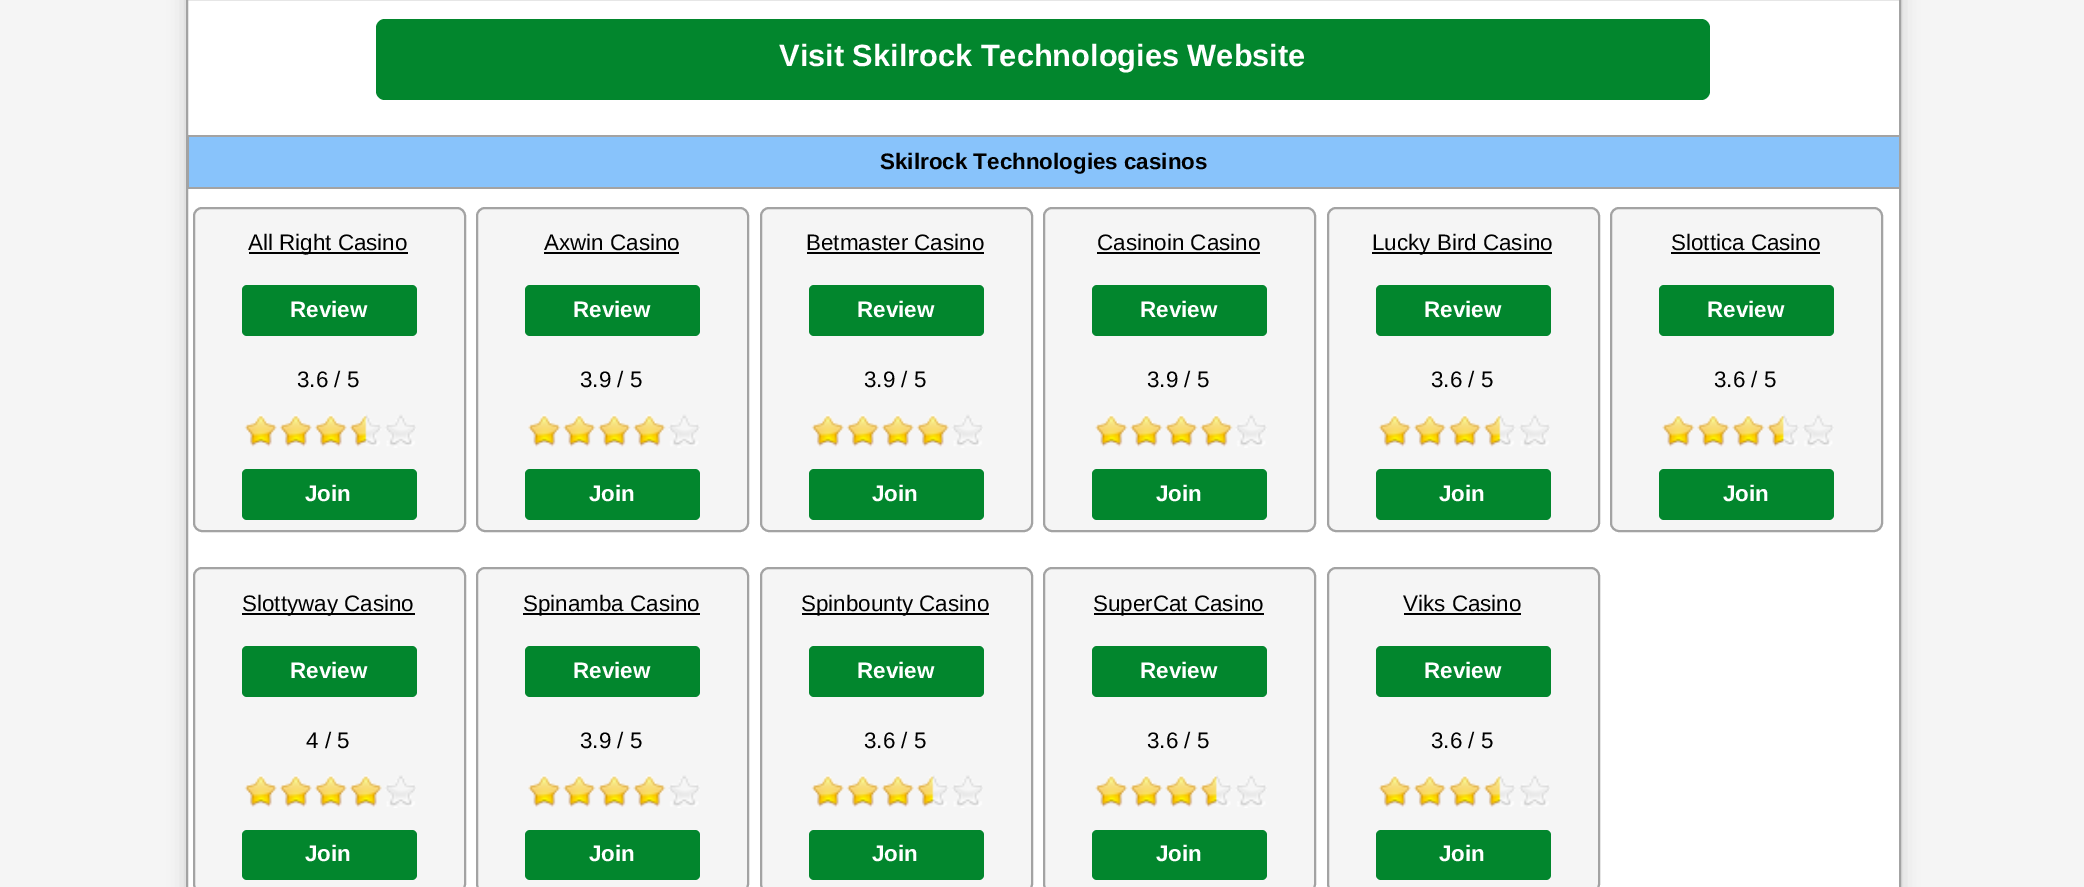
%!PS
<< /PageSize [2084 887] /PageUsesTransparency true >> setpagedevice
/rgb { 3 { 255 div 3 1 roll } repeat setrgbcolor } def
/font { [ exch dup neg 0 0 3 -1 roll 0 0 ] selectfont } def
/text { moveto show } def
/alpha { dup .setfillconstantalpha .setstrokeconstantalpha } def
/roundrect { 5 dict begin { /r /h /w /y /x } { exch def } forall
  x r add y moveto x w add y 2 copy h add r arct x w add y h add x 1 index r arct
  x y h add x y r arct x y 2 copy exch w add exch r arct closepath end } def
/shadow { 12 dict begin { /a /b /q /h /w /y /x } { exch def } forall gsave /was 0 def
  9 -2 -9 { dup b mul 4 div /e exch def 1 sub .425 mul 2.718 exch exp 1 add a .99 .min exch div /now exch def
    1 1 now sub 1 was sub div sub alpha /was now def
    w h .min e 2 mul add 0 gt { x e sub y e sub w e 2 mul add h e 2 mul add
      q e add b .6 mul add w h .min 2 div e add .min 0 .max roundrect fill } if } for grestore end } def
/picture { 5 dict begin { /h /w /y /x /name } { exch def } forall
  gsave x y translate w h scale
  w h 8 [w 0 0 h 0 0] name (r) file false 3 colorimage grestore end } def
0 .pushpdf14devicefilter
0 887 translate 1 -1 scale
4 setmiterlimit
245 245 245 rgb
0 0 2084 887 rectfill
0 0 0 rgb
186 -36 1715 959 9 9 0.16 shadow
255 255 255 rgb
187 -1 moveto 1713 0 rlineto 0 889 rlineto -1713 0 rlineto closepath gsave fill grestore
163 163 163 rgb
2 setlinewidth
stroke
2 134 45 rgb
376 19 1334 81 9 roundrect fill
136 195 251 rgb
189 137 1710 50 rectfill
163 163 163 rgb
189 137 moveto 1710 0 rlineto 0 -2 rlineto -1712 0 rlineto 0 54 rlineto 1712 0 rlineto 0 -2 rlineto -1710 0 rlineto closepath fill
245 245 245 rgb
194 208 271 323 8 roundrect gsave fill grestore
163 163 163 rgb
stroke
0 0 0 rgb
249 252 159 2 rectfill
2 134 45 rgb
242 285 175 51 5 roundrect fill
(img_01.rgb) 244 414 172 34 picture
242 469 175 51 5 roundrect fill
245 245 245 rgb
477 208 271 323 8 roundrect gsave fill grestore
163 163 163 rgb
stroke
0 0 0 rgb
544 252 135 2 rectfill
2 134 45 rgb
525 285 175 51 5 roundrect fill
(img_02.rgb) 528 414 172 34 picture
525 469 175 51 5 roundrect fill
245 245 245 rgb
761 208 271 323 8 roundrect gsave fill grestore
163 163 163 rgb
stroke
0 0 0 rgb
807 252 177 2 rectfill
2 134 45 rgb
809 285 175 51 5 roundrect fill
(img_03.rgb) 811 414 172 34 picture
809 469 175 51 5 roundrect fill
245 245 245 rgb
1044 208 271 323 8 roundrect gsave fill grestore
163 163 163 rgb
stroke
0 0 0 rgb
1097 252 163 2 rectfill
2 134 45 rgb
1092 285 175 51 5 roundrect fill
(img_04.rgb) 1095 414 172 34 picture
1092 469 175 51 5 roundrect fill
245 245 245 rgb
1328 208 271 323 8 roundrect gsave fill grestore
163 163 163 rgb
stroke
0 0 0 rgb
1372 252 180 2 rectfill
2 134 45 rgb
1376 285 175 51 5 roundrect fill
(img_01.rgb) 1378 414 172 34 picture
1376 469 175 51 5 roundrect fill
245 245 245 rgb
1611 208 271 323 8 roundrect gsave fill grestore
163 163 163 rgb
stroke
0 0 0 rgb
1671 252 149 2 rectfill
2 134 45 rgb
1659 285 175 51 5 roundrect fill
(img_05.rgb) 1662 414 172 34 picture
1659 469 175 51 5 roundrect fill
245 245 245 rgb
194 568 271 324 8 roundrect gsave fill grestore
163 163 163 rgb
stroke
0 0 0 rgb
242 613 173 2 rectfill
2 134 45 rgb
242 646 175 51 5 roundrect fill
(img_06.rgb) 244 775 172 33 picture
242 830 175 50 5 roundrect fill
245 245 245 rgb
477 568 271 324 8 roundrect gsave fill grestore
163 163 163 rgb
stroke
0 0 0 rgb
523 613 177 2 rectfill
2 134 45 rgb
525 646 175 51 5 roundrect fill
(img_07.rgb) 528 775 172 33 picture
525 830 175 50 5 roundrect fill
245 245 245 rgb
761 568 271 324 8 roundrect gsave fill grestore
163 163 163 rgb
stroke
0 0 0 rgb
802 613 187 2 rectfill
2 134 45 rgb
809 646 175 51 5 roundrect fill
(img_08.rgb) 811 775 172 33 picture
809 830 175 50 5 roundrect fill
245 245 245 rgb
1044 568 271 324 8 roundrect gsave fill grestore
163 163 163 rgb
stroke
0 0 0 rgb
1094 613 170 2 rectfill
2 134 45 rgb
1092 646 175 51 5 roundrect fill
(img_09.rgb) 1095 775 172 33 picture
1092 830 175 50 5 roundrect fill
245 245 245 rgb
1328 568 271 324 8 roundrect gsave fill grestore
163 163 163 rgb
stroke
0 0 0 rgb
1404 613 117 2 rectfill
2 134 45 rgb
1376 646 175 51 5 roundrect fill
(img_10.rgb) 1378 775 172 33 picture
1376 830 175 50 5 roundrect fill
/LiberationSans-Bold 30.75 font
255 255 255 rgb
(Visit Skilrock Technologies Website) 779 66 text
/LiberationSans-Bold 22.4 font
0 0 0 rgb
(Skilrock Technologies casinos) 880 169 text
/LiberationSans-Regular 22.4 font
(All Right Casino) 248 250 text
/LiberationSans-Bold 22.4 font
255 255 255 rgb
(Review) 290 317 text
/LiberationSans-Regular 22.4 font
0 0 0 rgb
(3.6 / 5) 297 387 text
/LiberationSans-Bold 22.4 font
255 255 255 rgb
(Join) 305 501 text
/LiberationSans-Regular 22.4 font
0 0 0 rgb
(Axwin Casino) 544 250 text
/LiberationSans-Bold 22.4 font
255 255 255 rgb
(Review) 573 317 text
/LiberationSans-Regular 22.4 font
0 0 0 rgb
(3.9 / 5) 580 387 text
/LiberationSans-Bold 22.4 font
255 255 255 rgb
(Join) 589 501 text
/LiberationSans-Regular 22.4 font
0 0 0 rgb
(Betmaster Casino) 806 250 text
/LiberationSans-Bold 22.4 font
255 255 255 rgb
(Review) 857 317 text
/LiberationSans-Regular 22.4 font
0 0 0 rgb
(3.9 / 5) 864 387 text
/LiberationSans-Bold 22.4 font
255 255 255 rgb
(Join) 872 501 text
/LiberationSans-Regular 22.4 font
0 0 0 rgb
(Casinoin Casino) 1097 250 text
/LiberationSans-Bold 22.4 font
255 255 255 rgb
(Review) 1140 317 text
/LiberationSans-Regular 22.4 font
0 0 0 rgb
(3.9 / 5) 1147 387 text
/LiberationSans-Bold 22.4 font
255 255 255 rgb
(Join) 1156 501 text
/LiberationSans-Regular 22.4 font
0 0 0 rgb
(Lucky Bird Casino) 1372 250 text
/LiberationSans-Bold 22.4 font
255 255 255 rgb
(Review) 1424 317 text
/LiberationSans-Regular 22.4 font
0 0 0 rgb
(3.6 / 5) 1431 387 text
/LiberationSans-Bold 22.4 font
255 255 255 rgb
(Join) 1439 501 text
/LiberationSans-Regular 22.4 font
0 0 0 rgb
(Slottica Casino) 1671 250 text
/LiberationSans-Bold 22.4 font
255 255 255 rgb
(Review) 1707 317 text
/LiberationSans-Regular 22.4 font
0 0 0 rgb
(3.6 / 5) 1714 387 text
/LiberationSans-Bold 22.4 font
255 255 255 rgb
(Join) 1723 501 text
/LiberationSans-Regular 22.4 font
0 0 0 rgb
(Slottyway Casino) 242 611 text
/LiberationSans-Bold 22.4 font
255 255 255 rgb
(Review) 290 678 text
/LiberationSans-Regular 22.4 font
0 0 0 rgb
(4 / 5) 306 748 text
/LiberationSans-Bold 22.4 font
255 255 255 rgb
(Join) 305 861 text
/LiberationSans-Regular 22.4 font
0 0 0 rgb
(Spinamba Casino) 523 611 text
/LiberationSans-Bold 22.4 font
255 255 255 rgb
(Review) 573 678 text
/LiberationSans-Regular 22.4 font
0 0 0 rgb
(3.9 / 5) 580 748 text
/LiberationSans-Bold 22.4 font
255 255 255 rgb
(Join) 589 861 text
/LiberationSans-Regular 22.4 font
0 0 0 rgb
(Spinbounty Casino) 801 611 text
/LiberationSans-Bold 22.4 font
255 255 255 rgb
(Review) 857 678 text
/LiberationSans-Regular 22.4 font
0 0 0 rgb
(3.6 / 5) 864 748 text
/LiberationSans-Bold 22.4 font
255 255 255 rgb
(Join) 872 861 text
/LiberationSans-Regular 22.4 font
0 0 0 rgb
(SuperCat Casino) 1093 611 text
/LiberationSans-Bold 22.4 font
255 255 255 rgb
(Review) 1140 678 text
/LiberationSans-Regular 22.4 font
0 0 0 rgb
(3.6 / 5) 1147 748 text
/LiberationSans-Bold 22.4 font
255 255 255 rgb
(Join) 1156 861 text
/LiberationSans-Regular 22.4 font
0 0 0 rgb
(Viks Casino) 1403 611 text
/LiberationSans-Bold 22.4 font
255 255 255 rgb
(Review) 1424 678 text
/LiberationSans-Regular 22.4 font
0 0 0 rgb
(3.6 / 5) 1431 748 text
/LiberationSans-Bold 22.4 font
255 255 255 rgb
(Join) 1439 861 text
.poppdf14devicefilter showpage
